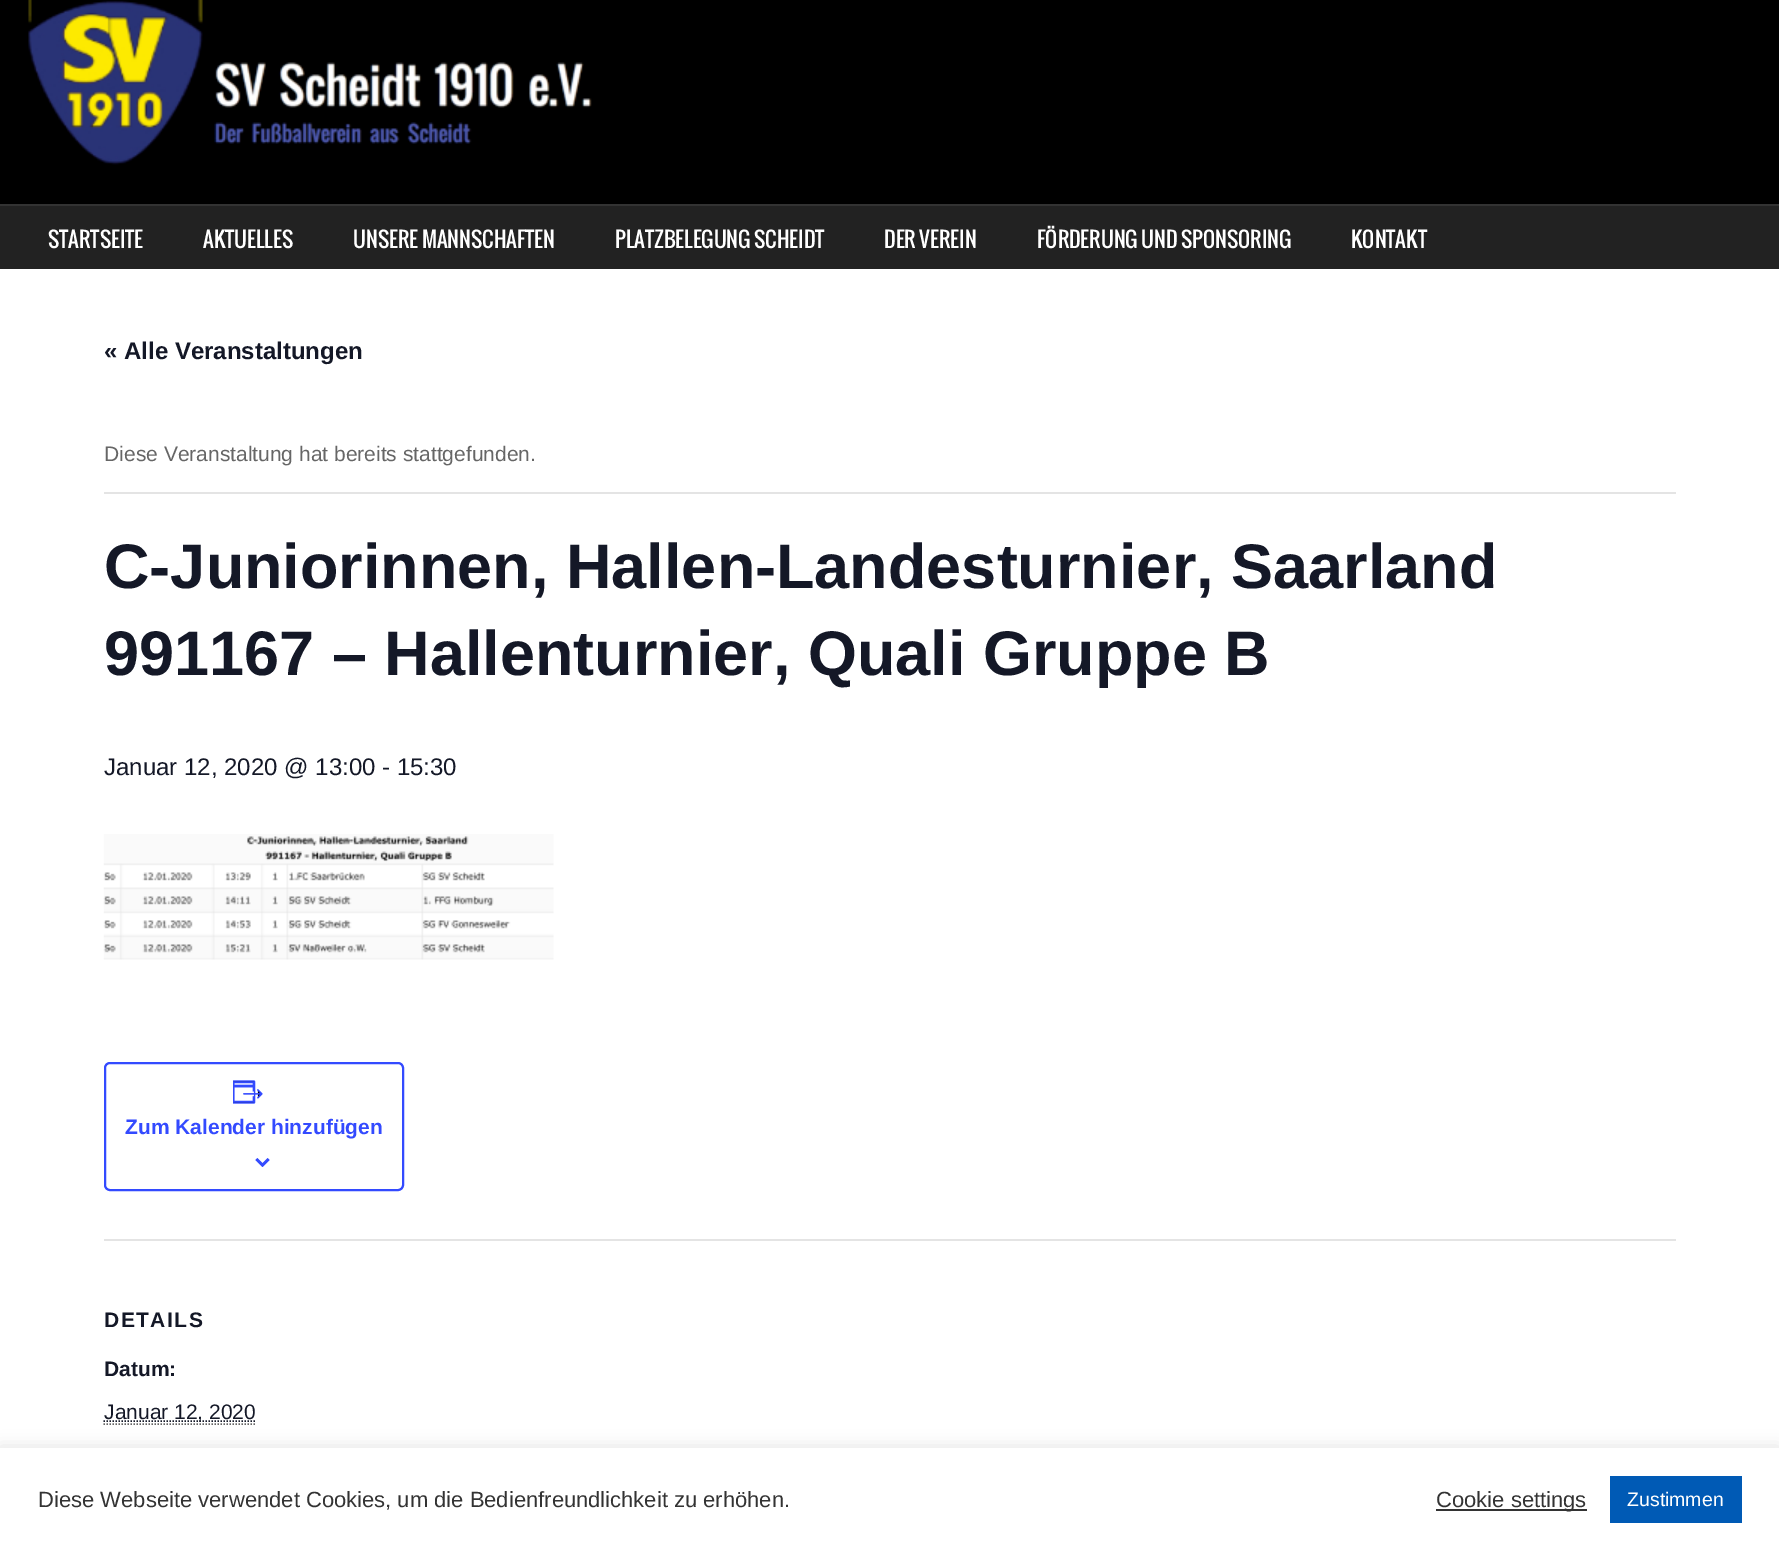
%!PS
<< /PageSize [1779 1551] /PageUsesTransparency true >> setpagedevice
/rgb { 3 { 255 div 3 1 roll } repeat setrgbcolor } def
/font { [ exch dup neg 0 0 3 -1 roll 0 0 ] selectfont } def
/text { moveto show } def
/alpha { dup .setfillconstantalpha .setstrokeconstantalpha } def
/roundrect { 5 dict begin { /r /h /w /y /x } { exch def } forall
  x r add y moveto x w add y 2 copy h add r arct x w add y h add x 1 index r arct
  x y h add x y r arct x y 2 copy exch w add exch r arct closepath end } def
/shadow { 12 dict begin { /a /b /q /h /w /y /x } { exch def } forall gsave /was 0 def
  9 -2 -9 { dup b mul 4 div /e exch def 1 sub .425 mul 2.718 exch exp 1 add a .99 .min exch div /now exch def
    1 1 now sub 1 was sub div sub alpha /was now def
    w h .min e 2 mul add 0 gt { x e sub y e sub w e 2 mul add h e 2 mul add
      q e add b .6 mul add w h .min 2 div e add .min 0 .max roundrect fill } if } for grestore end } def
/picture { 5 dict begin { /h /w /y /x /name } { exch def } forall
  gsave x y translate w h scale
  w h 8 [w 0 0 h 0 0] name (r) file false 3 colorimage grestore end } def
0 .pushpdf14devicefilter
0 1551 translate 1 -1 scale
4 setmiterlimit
0 0 0 rgb
0 0 1779 1551 rectfill
(img_01.rgb) 28 0 564 165 picture
34 34 34 rgb
0 206 1779 63 rectfill
51 51 51 rgb
0 204 1779 2 rectfill
255 255 255 rgb
0 269 1779 1179 rectfill
228 228 228 rgb
104 492 1572 2 rectfill
(img_02.rgb) 103 834 451 126 picture
51 74 255 rgb
2 setlinewidth
105 1063 298 127 5 roundrect stroke
(img_03.rgb) 233 1080 30 24 picture
(img_04.rgb) 255 1158 15 9 picture
228 228 228 rgb
104 1239 1572 2 rectfill
102 102 102 rgb
1.5 setlinewidth
[1.5 1.5] 0 setdash
103.5 1424 moveto 151.5 0 rlineto stroke
20 24 39 rgb
103.5 1421 moveto 152 0 rlineto stroke
172 171 171 rgb
0 1446 1779 104 0 7.5 0.3 shadow
255 255 255 rgb
0 1448 1779 103 rectfill
51 51 51 rgb
1436 1509 151 2 rectfill
0 90 181 rgb
1610 1476 132 47 rectfill
/Oswald-Regular 21 font
255 255 255 rgb
(STARTSEITE) 48 248 text
(AKTUELLES) 203 248 text
(UNSERE MANNSCHAFTEN) 353 248 text
(PLATZBELEGUNG SCHEIDT) 615 248 text
(DER VEREIN) 884 248 text
(FÖRDERUNG UND SPONSORING) 1037 248 text
(KONTAKT) 1351 248 text
/LiberationSans-Bold 24 font
20 24 39 rgb
(« Alle Veranstaltungen) 104 359 text
/LiberationSans-Regular 21 font
102 102 102 rgb
(Diese Veranstaltung hat bereits stattgefunden.) 104 461 text
/LiberationSans-Bold 63 font
20 24 39 rgb
(C-Juniorinnen, Hallen-Landesturnier, Saarland) 104 588 text
(991167 – Hallenturnier, Quali Gruppe B) 104 675 text
/LiberationSans-Regular 24 font
(Januar 12, 2020 @ 13:00 - 15:30) 104 775 text
/LiberationSans-Bold 21 font
51 74 255 rgb
(Zum Kalender hinzufügen) 125 1134 text
20 24 39 rgb
104 1327 moveto 1.5 0 (DETAILS) ashow
(Datum:) 104 1376 text
/LiberationSans-Regular 21 font
(Januar 12, 2020) 104 1419 text
/LiberationSans-Regular 22 font
51 51 51 rgb
(Diese Webseite verwendet Cookies, um die Bedienfreundlichkeit zu erhöhen.) 38 1507 text
(Cookie settings) 1436 1507 text
/LiberationSans-Regular 19.5 font
255 255 255 rgb
(Zustimmen) 1627 1506 text
.poppdf14devicefilter showpage
